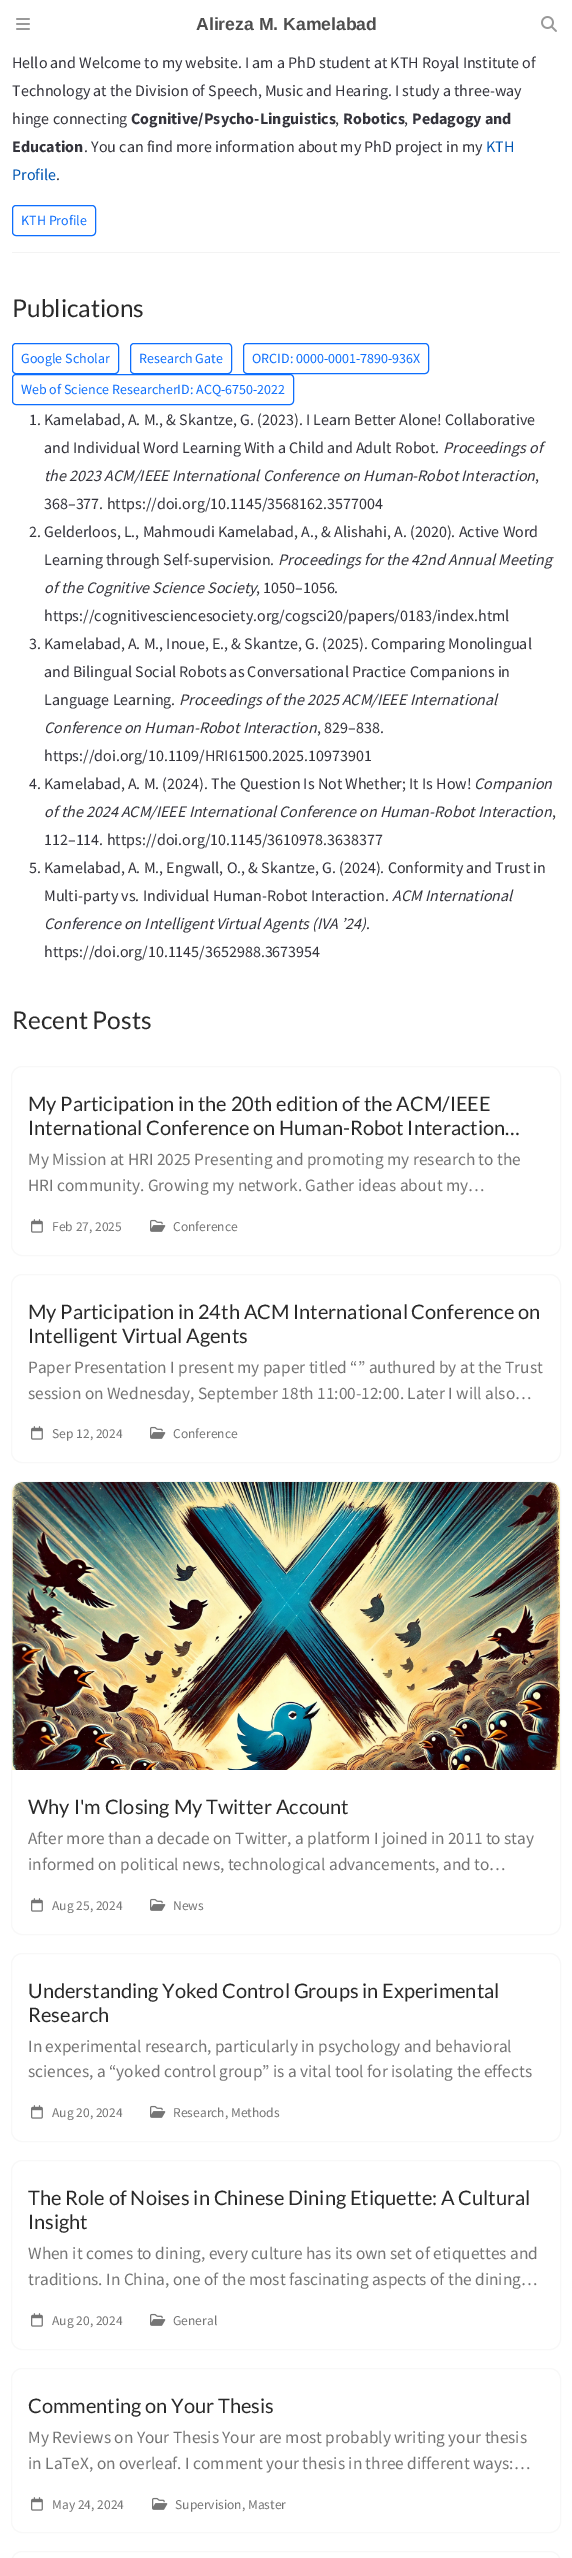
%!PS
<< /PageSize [572 2558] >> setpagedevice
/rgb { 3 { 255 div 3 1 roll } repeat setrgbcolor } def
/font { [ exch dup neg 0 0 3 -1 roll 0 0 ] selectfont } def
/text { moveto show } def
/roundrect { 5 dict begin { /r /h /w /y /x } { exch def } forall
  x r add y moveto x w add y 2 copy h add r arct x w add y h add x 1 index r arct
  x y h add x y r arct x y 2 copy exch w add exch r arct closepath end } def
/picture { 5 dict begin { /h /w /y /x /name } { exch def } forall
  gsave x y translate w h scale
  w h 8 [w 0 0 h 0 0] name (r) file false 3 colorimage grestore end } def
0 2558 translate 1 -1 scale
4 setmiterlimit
255 255 255 rgb
0 0 572 2558 rectfill
(img_01.rgb) 16 18 14 12 picture
(img_02.rgb) 541 16 16 16 picture
13 110 253 rgb
12.5 205.5 83 30 3.5 roundrect stroke
243 243 243 rgb
12 252 548 1 rectfill
13 110 253 rgb
12.5 343.5 106 30 3.5 roundrect stroke
130.5 343.5 101 30 3.5 roundrect stroke
243.5 343.5 185 30 3.5 roundrect stroke
12.5 374.5 281 30 3.5 roundrect stroke
248 248 248 rgb
11.5 1066.5 549 189 10.5 roundrect stroke
(img_03.rgb) 31 1219 12 14 picture
(img_04.rgb) 150 1219 16 13 picture
11.5 1274.5 549 188 10.5 roundrect stroke
(img_03.rgb) 31 1426 12 14 picture
(img_04.rgb) 150 1426 16 13 picture
11.5 1481.5 549 453 10.5 roundrect stroke
gsave 22 1482 moveto 528 0 rlineto 5.5 0 10 4.5 10 10 rcurveto 0 278 rlineto -548 0 rlineto 0 -278 rlineto 0 -5.5 4.5 -10 10 -10 rcurveto closepath clip newpath 286 1626 translate 310 310 scale
<< /ShadingType 3 /ColorSpace /DeviceRGB /Coords [0 0 0 0 0 1] /Extend [true true] /Function << /FunctionType 2 /Domain [0 1] /C0 [1 1 1] /C1 [0.937 0.937 0.937] /N 1 >> >> shfill grestore
(img_05.rgb) 12 1482 548 288 picture
(img_03.rgb) 31 1898 12 14 picture
(img_04.rgb) 150 1898 16 13 picture
11.5 1953.5 549 188 10.5 roundrect stroke
(img_03.rgb) 31 2105 12 14 picture
(img_04.rgb) 150 2105 16 13 picture
11.5 2160.5 549 189 10.5 roundrect stroke
(img_03.rgb) 31 2313 12 14 picture
(img_04.rgb) 150 2313 16 13 picture
11.5 2368.5 549 164 10.5 roundrect stroke
(img_03.rgb) 31 2497 12 14 picture
(img_04.rgb) 152 2497 16 13 picture
11.5 2551.5 549 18 10.5 roundrect stroke
/LiberationSans-Bold 17.6 font
78 78 78 rgb
(Alireza M. Kamelabad) 196 30 text
/SourceSansPro-Regular 16 font
52 52 60 rgb
(Hello and Welcome to my website. I am a PhD student at KTH Royal Institute of) 12 68 text
(Technology at the Division of Speech, Music and Hearing. I study a three-way) 12 96 text
(hinge connecting) 12 124 text
/SourceSansPro-Bold 16 font
(Cognitive/Psycho-Linguistics) 131 124 text
/SourceSansPro-Regular 16 font
(,) 335 124 text
/SourceSansPro-Bold 16 font
(Robotics) 343 124 text
/SourceSansPro-Regular 16 font
(,) 404 124 text
/SourceSansPro-Bold 16 font
(Pedagogy and) 412 124 text
(Education) 12 152 text
/SourceSansPro-Regular 16 font
(. You can find more information about my PhD project in my) 84 152 text
0 86 178 rgb
(KTH) 486 152 text
(Profile) 12 180 text
52 52 60 rgb
(.) 56 180 text
/SourceSansPro-Regular 14 font
13 110 253 rgb
(KTH Profile) 21 225 text
/Lato-Regular 24.5 font
42 42 42 rgb
(Publications) 12 317 text
/SourceSansPro-Regular 14 font
13 110 253 rgb
(Google Scholar) 21 363 text
(Research Gate) 139 363 text
(ORCID: 0000-0001-7890-936X) 252 363 text
(Web of Science ResearcherID: ACQ-6750-2022) 21 394 text
/SourceSansPro-Regular 16 font
52 52 60 rgb
(1. Kamelabad, A. M., & Skantze, G. \(2023\). I Learn Better Alone! Collaborative) 29 425 text
(and Individual Word Learning With a Child and Adult Robot.) 44 453 text
/SourceSansPro-Italic 16 font
(Proceedings of) 443 453 text
(the 2023 ACM/IEEE International Conference on Human-Robot Interaction) 44 481 text
/SourceSansPro-Regular 16 font
(,) 535 481 text
(368–377. https://doi.org/10.1145/3568162.3577004) 44 509 text
(2. Gelderloos, L., Mahmoudi Kamelabad, A., & Alishahi, A. \(2020\). Active Word) 29 537 text
(Learning through Self-supervision.) 44 565 text
/SourceSansPro-Italic 16 font
(Proceedings for the 42nd Annual Meeting) 278 565 text
(of the Cognitive Science Society) 44 593 text
/SourceSansPro-Regular 16 font
(, 1050–1056.) 256 593 text
(https://cognitivesciencesociety.org/cogsci20/papers/0183/index.html) 44 621 text
(3. Kamelabad, A. M., Inoue, E., & Skantze, G. \(2025\). Comparing Monolingual) 29 649 text
(and Bilingual Social Robots as Conversational Practice Companions in) 44 677 text
(Language Learning.) 44 705 text
/SourceSansPro-Italic 16 font
(Proceedings of the 2025 ACM/IEEE International) 179 705 text
(Conference on Human-Robot Interaction) 44 733 text
/SourceSansPro-Regular 16 font
(, 829–838.) 317 733 text
(https://doi.org/10.1109/HRI61500.2025.10973901) 44 761 text
(4. Kamelabad, A. M. \(2024\). The Question Is Not Whether; It Is How!) 29 789 text
/SourceSansPro-Italic 16 font
(Companion) 474 789 text
(of the 2024 ACM/IEEE International Conference on Human-Robot Interaction) 44 817 text
/SourceSansPro-Regular 16 font
(,) 552 817 text
(112–114. https://doi.org/10.1145/3610978.3638377) 44 845 text
(5. Kamelabad, A. M., Engwall, O., & Skantze, G. \(2024\). Conformity and Trust in) 29 873 text
(Multi-party vs. Individual Human-Robot Interaction.) 44 901 text
/SourceSansPro-Italic 16 font
(ACM International) 392 901 text
(Conference on Intelligent Virtual Agents \(IVA ’24\)) 44 929 text
/SourceSansPro-Regular 16 font
(.) 366 929 text
(https://doi.org/10.1145/3652988.3673954) 44 957 text
/Lato-Regular 24.5 font
42 42 42 rgb
(Recent Posts) 12 1029 text
/Lato-Regular 20 font
(My Participation in the 20th edition of the ACM/IEEE) 28 1111 text
(International Conference on Human-Robot Interaction…) 28 1135 text
/SourceSansPro-Regular 17.25 font
117 117 117 rgb
(My Mission at HRI 2025 Presenting and promoting my research to the) 28 1165 text
(HRI community. Growing my network. Gather ideas about my…) 28 1191 text
/SourceSansPro-Regular 13.5 font
(Feb 27, 2025) 52 1231 text
(Conference) 173 1231 text
/Lato-Regular 20 font
42 42 42 rgb
(My Participation in 24th ACM International Conference on) 28 1319 text
(Intelligent Virtual Agents) 28 1343 text
/SourceSansPro-Regular 17.25 font
117 117 117 rgb
(Paper Presentation I present my paper titled “” authured by at the Trust) 28 1373 text
(session on Wednesday, September 18th 11:00-12:00. Later I will also…) 28 1399 text
/SourceSansPro-Regular 13.5 font
(Sep 12, 2024) 52 1438 text
(Conference) 173 1438 text
/Lato-Regular 20 font
42 42 42 rgb
(Why I'm Closing My Twitter Account) 28 1814 text
/SourceSansPro-Regular 17.25 font
117 117 117 rgb
(After more than a decade on Twitter, a platform I joined in 2011 to stay) 28 1844 text
(informed on political news, technological advancements, and to…) 28 1870 text
/SourceSansPro-Regular 13.5 font
(Aug 25, 2024) 52 1910 text
(News) 173 1910 text
/Lato-Regular 20 font
42 42 42 rgb
(Understanding Yoked Control Groups in Experimental) 28 1998 text
(Research) 28 2022 text
/SourceSansPro-Regular 17.25 font
117 117 117 rgb
(In experimental research, particularly in psychology and behavioral) 28 2052 text
(sciences, a “yoked control group” is a vital tool for isolating the effects) 28 2077 text
/SourceSansPro-Regular 13.5 font
(Aug 20, 2024) 52 2117 text
(Research, Methods) 173 2117 text
/Lato-Regular 20 font
42 42 42 rgb
(The Role of Noises in Chinese Dining Etiquette: A Cultural) 28 2205 text
(Insight) 28 2229 text
/SourceSansPro-Regular 17.25 font
117 117 117 rgb
(When it comes to dining, every culture has its own set of etiquettes and) 28 2259 text
(traditions. In China, one of the most fascinating aspects of the dining…) 28 2285 text
/SourceSansPro-Regular 13.5 font
(Aug 20, 2024) 52 2325 text
(General) 173 2325 text
/Lato-Regular 20 font
42 42 42 rgb
(Commenting on Your Thesis) 28 2413 text
/SourceSansPro-Regular 17.25 font
117 117 117 rgb
(My Reviews on Your Thesis Your are most probably writing your thesis) 28 2443 text
(in LaTeX, on overleaf. I comment your thesis in three different ways:…) 28 2469 text
/SourceSansPro-Regular 13.5 font
(May 24, 2024) 52 2509 text
(Supervision, Master) 175 2509 text
showpage
